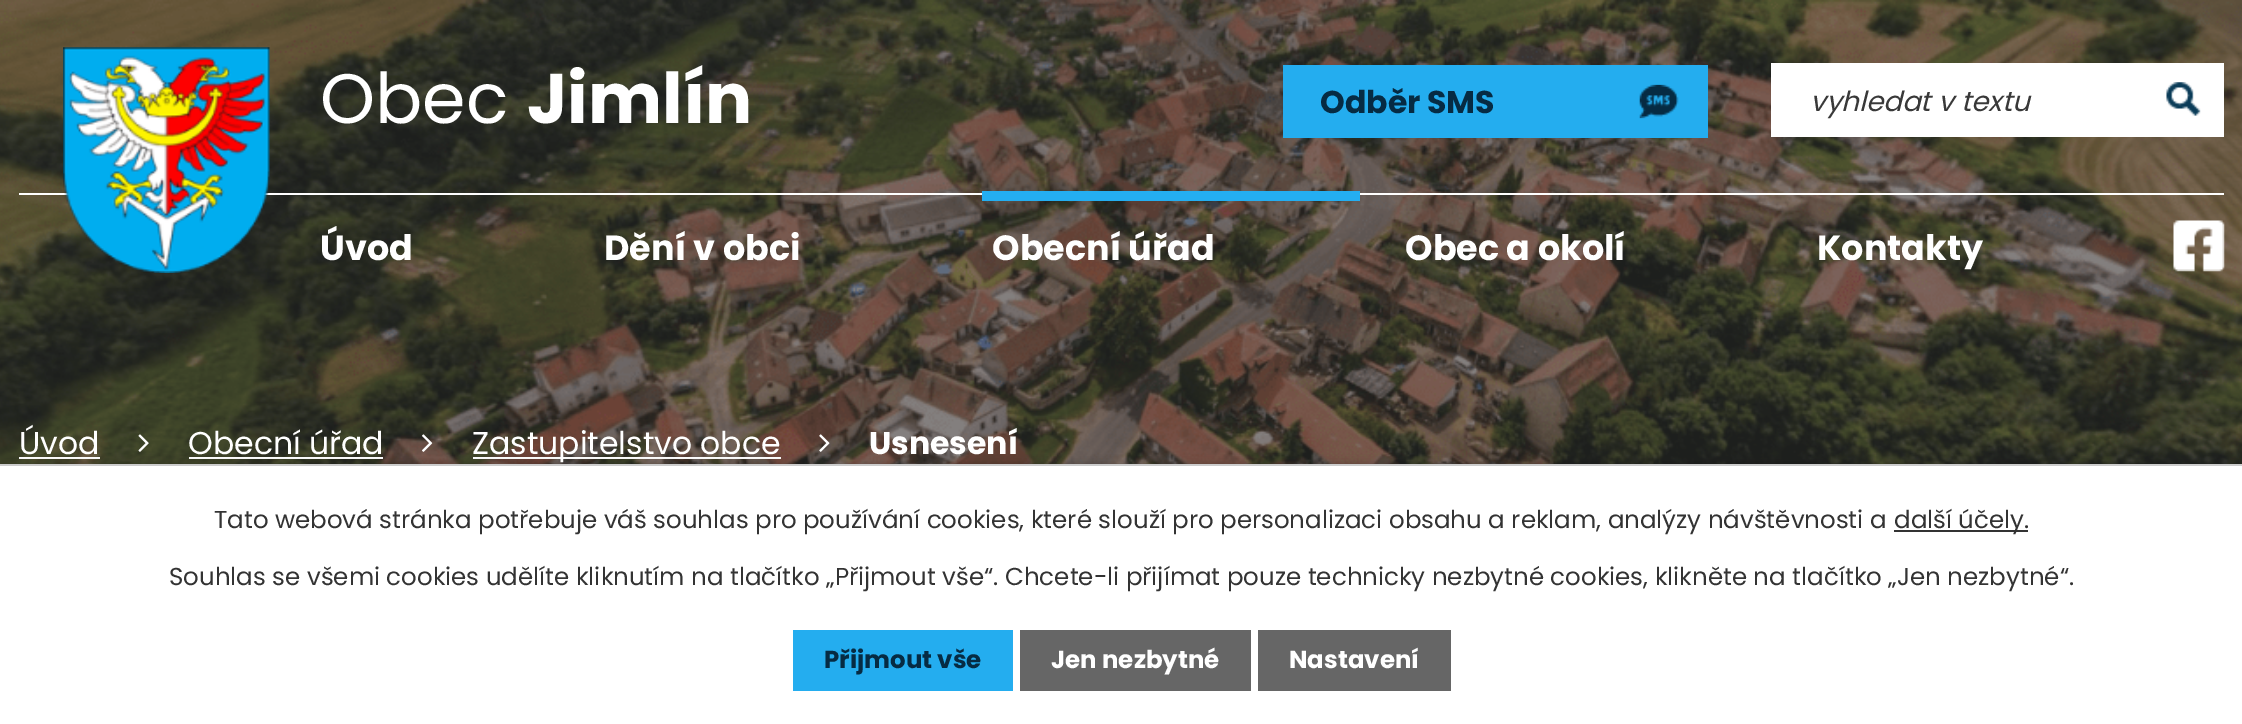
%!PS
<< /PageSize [2242 724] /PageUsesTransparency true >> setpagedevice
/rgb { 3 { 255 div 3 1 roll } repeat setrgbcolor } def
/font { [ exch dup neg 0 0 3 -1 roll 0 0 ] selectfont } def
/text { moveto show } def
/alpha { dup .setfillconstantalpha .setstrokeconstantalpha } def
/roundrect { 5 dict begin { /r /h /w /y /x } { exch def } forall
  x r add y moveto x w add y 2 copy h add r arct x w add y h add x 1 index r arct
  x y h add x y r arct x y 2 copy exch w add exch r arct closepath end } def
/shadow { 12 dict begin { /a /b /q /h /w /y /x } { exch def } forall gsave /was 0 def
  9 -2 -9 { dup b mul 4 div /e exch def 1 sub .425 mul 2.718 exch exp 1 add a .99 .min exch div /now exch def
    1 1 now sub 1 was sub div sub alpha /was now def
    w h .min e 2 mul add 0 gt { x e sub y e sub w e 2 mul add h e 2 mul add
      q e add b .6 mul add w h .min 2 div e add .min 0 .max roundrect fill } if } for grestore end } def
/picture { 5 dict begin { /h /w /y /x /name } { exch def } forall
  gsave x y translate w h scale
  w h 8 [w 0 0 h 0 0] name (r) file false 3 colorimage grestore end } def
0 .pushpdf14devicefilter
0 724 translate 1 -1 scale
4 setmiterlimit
255 255 255 rgb
0 0 2242 724 rectfill
(img_05.rgb) 0 0 2242 464 picture
19 193 2205 2 rectfill
(img_01.rgb) 63 47 207 226 picture
36 173 239 rgb
1283 65 425 73 rectfill
(img_02.rgb) 1639 84 40 35 picture
255 255 255 rgb
1771 63 453 74 rectfill
(img_03.rgb) 2166 82 35 34 picture
(img_04.rgb) 2173 220 52 52 picture
19 457 81 2 rectfill
(img_06.rgb) 138 434 11 18 picture
189 457 194 2 rectfill
(img_07.rgb) 422 434 11 18 picture
473 457 308 2 rectfill
(img_08.rgb) 819 434 11 18 picture
36 174 241 rgb
982 191 378 10 rectfill
0 0 0 rgb
0 464 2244 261 0 4.5 0.2 shadow
255 255 255 rgb
0 466 2242 258 rectfill
204 204 204 rgb
0 464 2242 2 rectfill
51 51 51 rgb
1894 530 134 2 rectfill
36 173 239 rgb
793 630 220 61 rectfill
102 102 102 rgb
1020 630 231 61 rectfill
1258 630 193 61 rectfill
/Poppins-Regular 70 font
255 255 255 rgb
(Obec) 320 123 text
/Poppins-Bold 70 font
(Jimlín) 527 123 text
/Poppins-Bold 31.5 font
6 43 67 rgb
(Odběr SMS) 1320 113 text
/Poppins-Italic 27.75 font
57 57 57 rgb
(vyhledat v textu) 1810 111 text
/Poppins-Regular 31.5 font
255 255 255 rgb
(Úvod) 19 454 text
(Obecní úřad) 188 454 text
(Zastupitelstvo obce) 472 454 text
/Poppins-Bold 31.5 font
(Usnesení) 869 454 text
/Poppins-Bold 35 font
(Úvod) 320 260 text
(Dění v obci) 604 260 text
(Obecní úřad) 992 260 text
(Obec a okolí) 1405 260 text
(Kontakty) 1817 260 text
/Poppins-Regular 24.5 font
51 51 51 rgb
(Tato webová stránka potřebuje váš souhlas pro používání cookies, které slouží pro personalizaci obsahu a reklam, analýzy návštěvnosti a) 214 528 text
(další účely.) 1894 528 text
(Souhlas se všemi cookies udělíte kliknutím na tlačítko „Přijmout vše“. Chcete-li přijímat pouze technicky nezbytné cookies, klikněte na tlačítko „Jen nezbytné“.) 169 585 text
/Poppins-Bold 24.5 font
6 43 67 rgb
(Přijmout vše) 824 668 text
255 255 255 rgb
(Jen nezbytné) 1051 668 text
(Nastavení) 1289 668 text
.poppdf14devicefilter showpage
